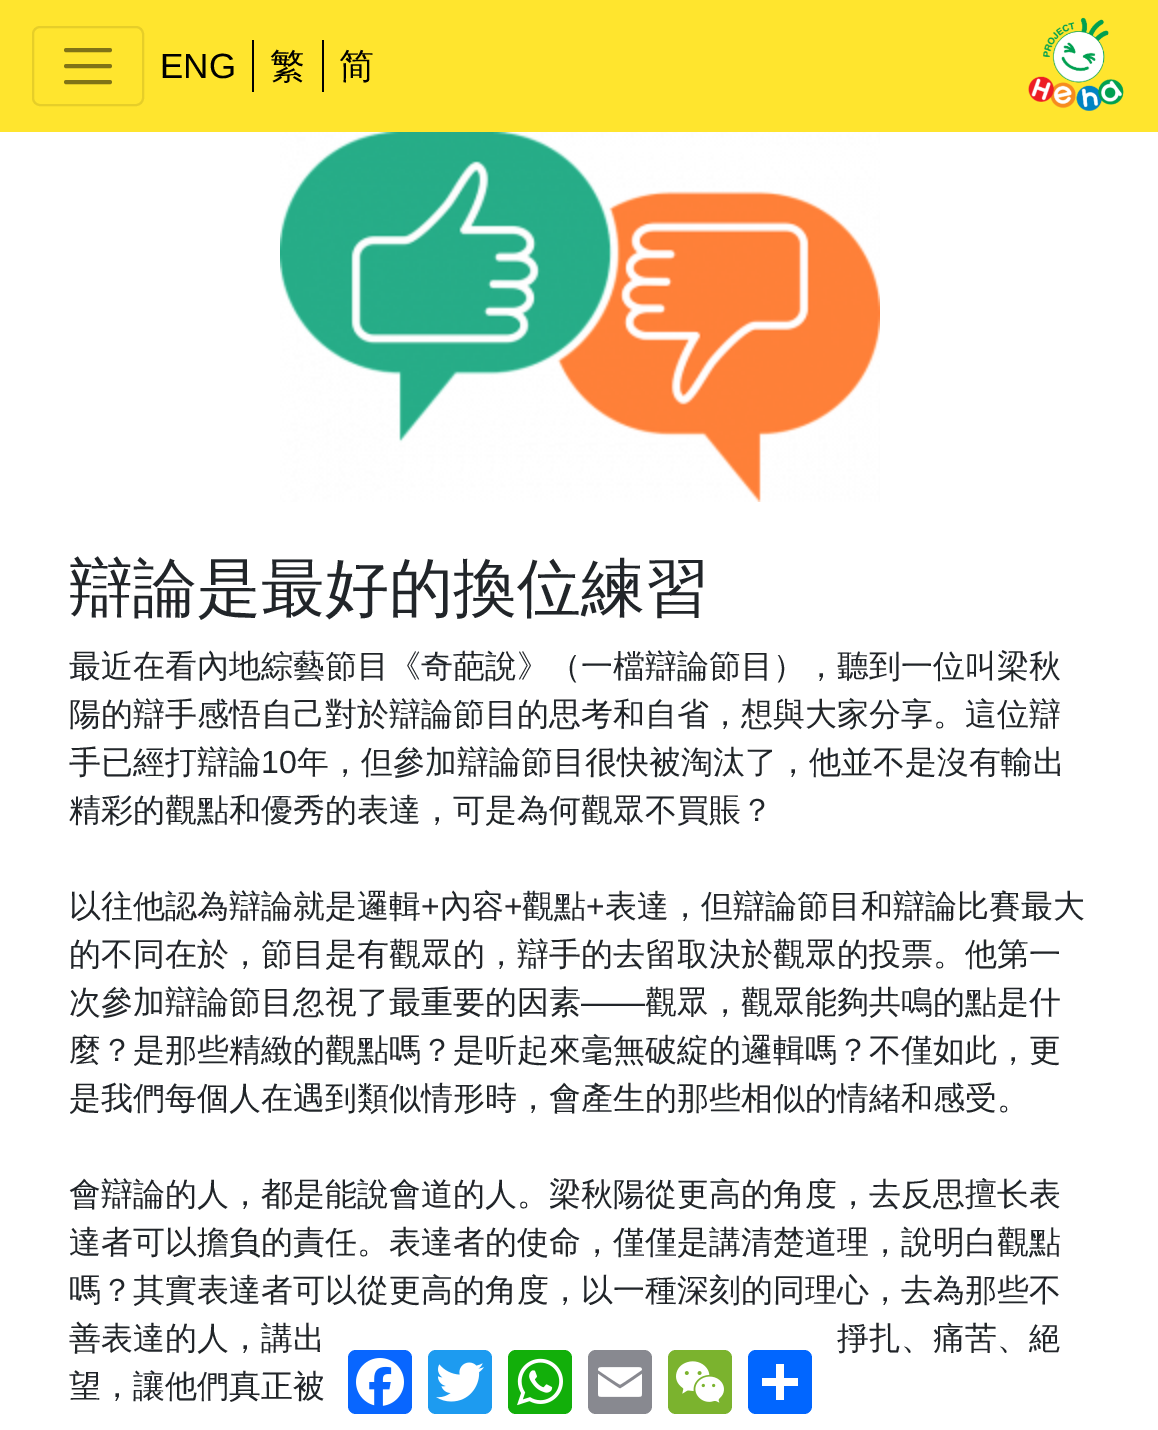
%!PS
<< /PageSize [1158 1430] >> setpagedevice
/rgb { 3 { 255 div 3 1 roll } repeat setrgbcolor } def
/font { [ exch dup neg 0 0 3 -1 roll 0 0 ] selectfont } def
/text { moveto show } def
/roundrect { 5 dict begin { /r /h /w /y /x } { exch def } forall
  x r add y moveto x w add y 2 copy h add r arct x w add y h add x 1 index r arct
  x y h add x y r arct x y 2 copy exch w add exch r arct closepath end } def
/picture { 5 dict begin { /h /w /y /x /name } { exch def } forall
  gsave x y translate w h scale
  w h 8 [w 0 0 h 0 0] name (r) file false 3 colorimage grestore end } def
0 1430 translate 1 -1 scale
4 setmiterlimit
255 255 255 rgb
0 0 1158 1430 rectfill
255 229 46 rgb
0 0 1158 132 rectfill
230 206 41 rgb
2 setlinewidth
33 27 110 78 7 roundrect stroke
128 115 23 rgb
4 setlinewidth
1 setlinecap
66 50 moveto 44 0 rlineto 66 66 moveto 44 0 rlineto 66 82 moveto 44 0 rlineto stroke
0 0 0 rgb
252 40 2 52 rectfill
322 40 2 52 rectfill
(img_01.rgb) 1028 17 96 94 picture
(img_02.rgb) 280 132 600 370 picture
8 102 255 rgb
348 1350 64 64 8 roundrect fill
(img_03.rgb) 356 1358 48 48 picture
29 155 240 rgb
428 1350 64 64 8 roundrect fill
(img_04.rgb) 436 1362 48 40 picture
18 175 10 rgb
508 1350 64 64 8 roundrect fill
(img_05.rgb) 517 1358 46 48 picture
136 137 144 rgb
588 1350 64 64 8 roundrect fill
(img_06.rgb) 598 1367 44 30 picture
123 179 46 rgb
668 1350 64 64 8 roundrect fill
(img_07.rgb) 676 1361 48 42 picture
1 102 255 rgb
748 1350 64 64 8 roundrect fill
255 255 255 rgb
776 1364 8 36 rectfill
762 1378 36 8 rectfill
/LiberationSans-Regular 35 font
0 0 0 rgb
(ENG) 160 78 text
/WenQuanYiZenHei-Medium 35 font
(繁) 270 78 text
(简) 339 78 text
/WenQuanYiZenHei-Medium 64 font
33 37 41 rgb
(辯論是最好的換位練習) 69 610 text
/WenQuanYiZenHei-Medium 32 font
(最近在看內地綜藝節目《奇葩說》（一檔辯論節目），聽到一位叫梁秋) 69 677 text
(陽的辯手感悟自己對於辯論節目的思考和自省，想與大家分享。這位辯) 69 725 text
(手已經打辯論) 69 773 text
/LiberationSans-Regular 32 font
(10) 261 773 text
/WenQuanYiZenHei-Medium 32 font
(年，但參加辯論節目很快被淘汰了，他並不是沒有輸出) 297 773 text
(精彩的觀點和優秀的表達，可是為何觀眾不買賬？) 69 821 text
(以往他認為辯論就是邏輯) 69 917 text
/LiberationSans-Regular 32 font
(+) 421 917 text
/WenQuanYiZenHei-Medium 32 font
(內容) 440 917 text
/LiberationSans-Regular 32 font
(+) 504 917 text
/WenQuanYiZenHei-Medium 32 font
(觀點) 522 917 text
/LiberationSans-Regular 32 font
(+) 586 917 text
/WenQuanYiZenHei-Medium 32 font
(表達，但辯論節目和辯論比賽最大) 605 917 text
(的不同在於，節目是有觀眾的，辯手的去留取決於觀眾的投票。他第一) 69 965 text
(次參加辯論節目忽視了最重要的因素) 69 1013 text
/LiberationSans-Regular 32 font
(——) 581 1013 text
/WenQuanYiZenHei-Medium 32 font
(觀眾，觀眾能夠共鳴的點是什) 645 1013 text
(麼？是那些精緻的觀點嗎？是听起來毫無破綻的邏輯嗎？不僅如此，更) 69 1061 text
(是我們每個人在遇到類似情形時，會產生的那些相似的情緒和感受。) 69 1109 text
(會辯論的人，都是能說會道的人。梁秋陽從更高的角度，去反思擅长表) 69 1205 text
(達者可以擔負的責任。表達者的使命，僅僅是講清楚道理，說明白觀點) 69 1253 text
(嗎？其實表達者可以從更高的角度，以一種深刻的同理心，去為那些不) 69 1301 text
(善表達的人，講出) 69 1349 text
(掙扎、痛苦、絕) 837 1349 text
(望，讓他們真正被) 69 1397 text
showpage
